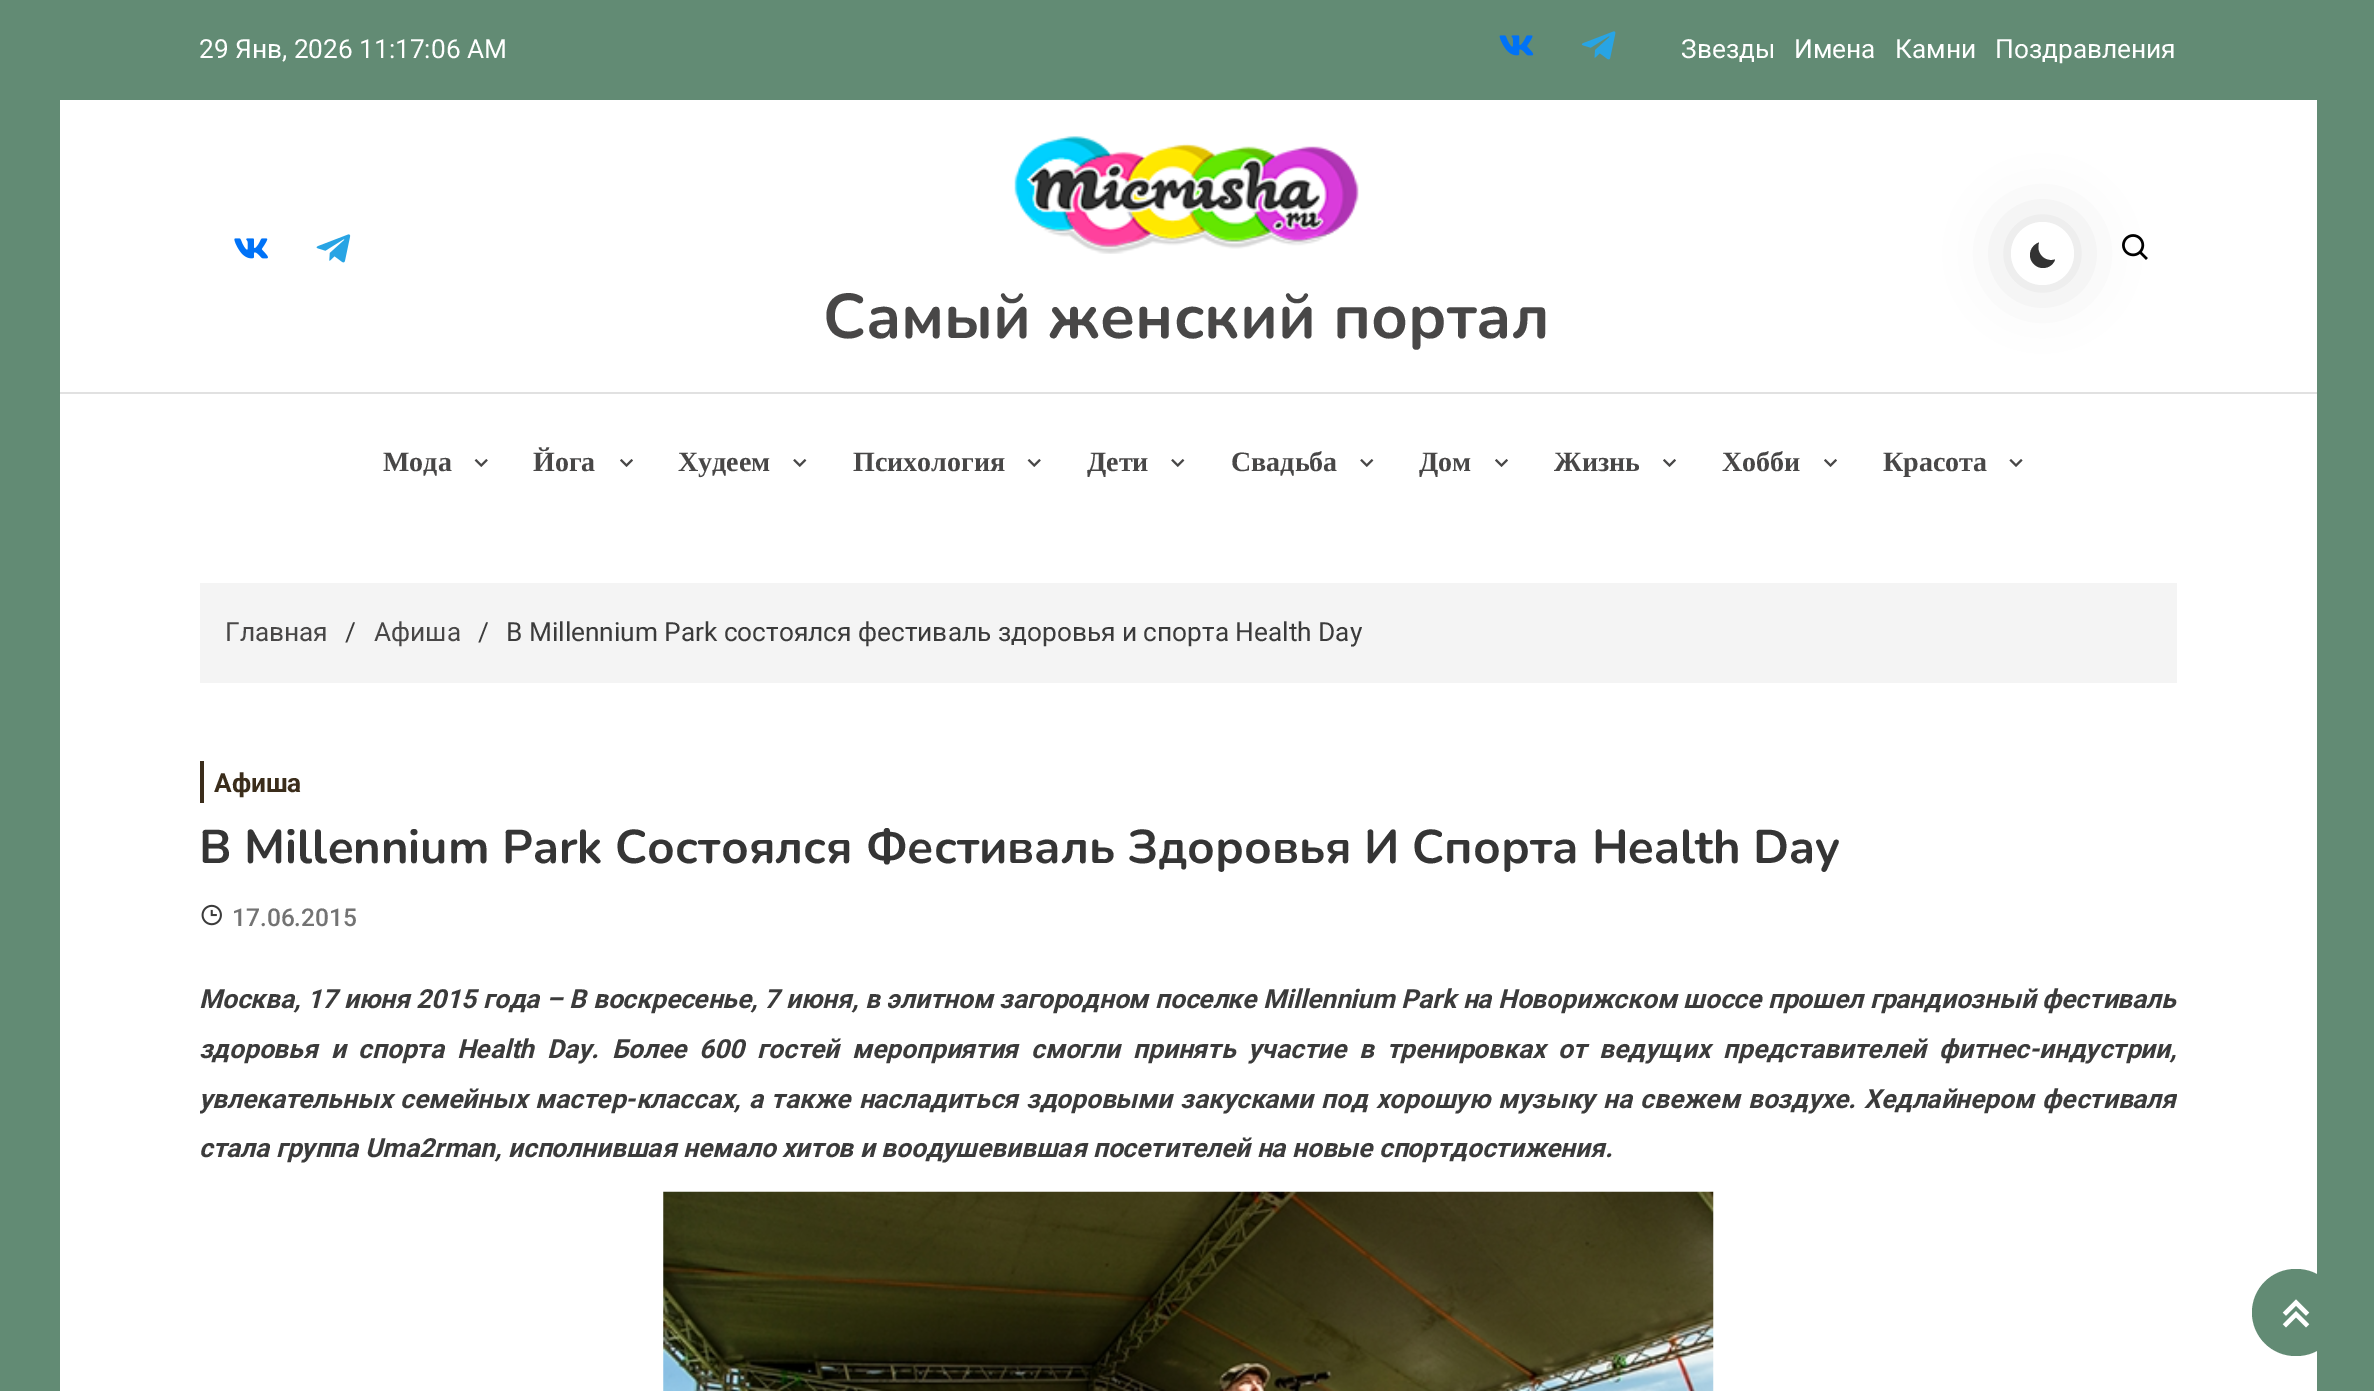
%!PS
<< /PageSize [2374 1391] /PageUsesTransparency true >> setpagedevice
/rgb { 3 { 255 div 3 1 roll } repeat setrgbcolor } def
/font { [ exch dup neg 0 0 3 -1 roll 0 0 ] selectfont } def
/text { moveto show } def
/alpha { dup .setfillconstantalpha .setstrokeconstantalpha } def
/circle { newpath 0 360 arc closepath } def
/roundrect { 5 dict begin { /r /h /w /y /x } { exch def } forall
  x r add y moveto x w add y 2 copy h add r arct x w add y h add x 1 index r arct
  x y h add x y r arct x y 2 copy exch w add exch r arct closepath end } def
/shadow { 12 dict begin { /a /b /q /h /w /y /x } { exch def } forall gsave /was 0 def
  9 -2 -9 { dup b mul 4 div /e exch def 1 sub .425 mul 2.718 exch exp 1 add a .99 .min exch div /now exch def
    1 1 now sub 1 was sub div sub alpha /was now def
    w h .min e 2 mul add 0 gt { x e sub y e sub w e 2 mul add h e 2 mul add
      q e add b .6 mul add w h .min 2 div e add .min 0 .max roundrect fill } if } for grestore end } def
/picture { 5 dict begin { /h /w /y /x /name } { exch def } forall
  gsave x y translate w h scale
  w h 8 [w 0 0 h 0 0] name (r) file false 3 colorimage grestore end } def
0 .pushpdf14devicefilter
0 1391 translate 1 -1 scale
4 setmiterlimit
98 139 116 rgb
0 0 2374 1391 rectfill
255 255 255 rgb
60 100 2257 1291 rectfill
(img_01.rgb) 1499 35 35 21 picture
(img_02.rgb) 1581 31 35 29 picture
(img_03.rgb) 234 238 34 21 picture
(img_04.rgb) 316 234 35 29 picture
0 0 0 rgb
2011 222 63 63 31.5 30.5 0.13 shadow
255 255 255 rgb
2042.5 253.5 31.5 circle fill
51 51 51 rgb
2055 259.5 moveto -10 3 -19.5 -6 -16 -17 rcurveto -5.5 2 -9 7 -9 12.5 rcurveto 0 7 6 13 13 13 rcurveto 5.5 0 10.5 -3.5 12 -8.5 rcurveto closepath fill
(img_05.rgb) 2122 234 26 26 picture
(img_06.rgb) 1014 136 345 118 picture
225 225 225 rgb
60 392 2257 2 rectfill
(img_07.rgb) 474 459 14 8 picture
(img_08.rgb) 620 459 13 8 picture
(img_09.rgb) 793 459 14 8 picture
(img_07.rgb) 1027 459 14 8 picture
(img_09.rgb) 1171 459 14 8 picture
(img_09.rgb) 1360 459 14 8 picture
(img_08.rgb) 1495 459 13 8 picture
(img_08.rgb) 1663 459 13 8 picture
(img_08.rgb) 1824 459 13 8 picture
(img_10.rgb) 2009 459 14 8 picture
244 244 244 rgb
200 583 1977 100 rectfill
59 45 27 rgb
200 761 4 42 rectfill
(img_11.rgb) 201 904 21 22 picture
(img_12.rgb) 663 1191 1051 200 picture
98 139 116 rgb
2252 1269 88 87 43.5 roundrect fill
(img_13.rgb) 2282 1299 28 29 picture
/Roboto-Regular 26.25 font
255 255 255 rgb
(29 Янв, 2026 11:17:06 AM) 199 58 text
(Звезды) 1681 58 text
(Имена) 1794 58 text
(Камни) 1895 58 text
(Поздравления) 1995 58 text
/Nunito-Bold 63 font
72 71 71 rgb
(Самый женский портал) 823 338 text
/LiberationSerif-Bold 28 font
(Мода) 383 471 text
(Йога) 533 471 text
(Худеем) 678 471 text
(Психология) 853 471 text
(Дети) 1087 471 text
(Свадьба) 1231 471 text
(Дом) 1419 471 text
(Жизнь) 1554 471 text
(Хобби) 1722 471 text
(Красота) 1883 471 text
/Roboto-Regular 26.25 font
(Главная) 225 641 text
59 59 59 rgb
(/) 345 641 text
72 71 71 rgb
(Афиша) 374 641 text
59 59 59 rgb
(/) 478 641 text
(В Millennium Park состоялся фестиваль здоровья и спорта Health Day) 506 641 text
/Roboto-Bold 26.25 font
59 45 27 rgb
(Афиша) 214 792 text
/Nunito-Bold 47.25 font
53 53 53 rgb
(В Millennium Park Состоялся Фестиваль Здоровья И Спорта Health Day) 199 863 text
/Roboto-Medium 24.5 font
115 115 115 rgb
(17.06.2015) 232 926 text
/Roboto-BoldItalic 26.25 font
59 59 59 rgb
199 1008 moveto 0.1 0 32 (Москва, 17 июня 2015 года – В воскресенье, 7 июня, в элитном загородном поселке Millennium Park на Новорижском шоссе прошел грандиозный фестиваль) widthshow
199 1058 moveto 6.4 0 32 (здоровья и спорта Health Day. Более 600 гостей мероприятия смогли принять участие в тренировках от ведущих представителей фитнес-индустрии,) widthshow
gsave
200 975 1977 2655 rectclip
199 1108 moveto 1.8 0 32 (увлекательных семейных мастер-классах, а также насладиться здоровыми закусками под хорошую музыку на свежем воздухе. Хедлайнером фестиваля) widthshow
grestore
(стала группа Uma2rman, исполнившая немало хитов и воодушевившая посетителей на новые спортдостижения.) 199 1157 text
.poppdf14devicefilter showpage
